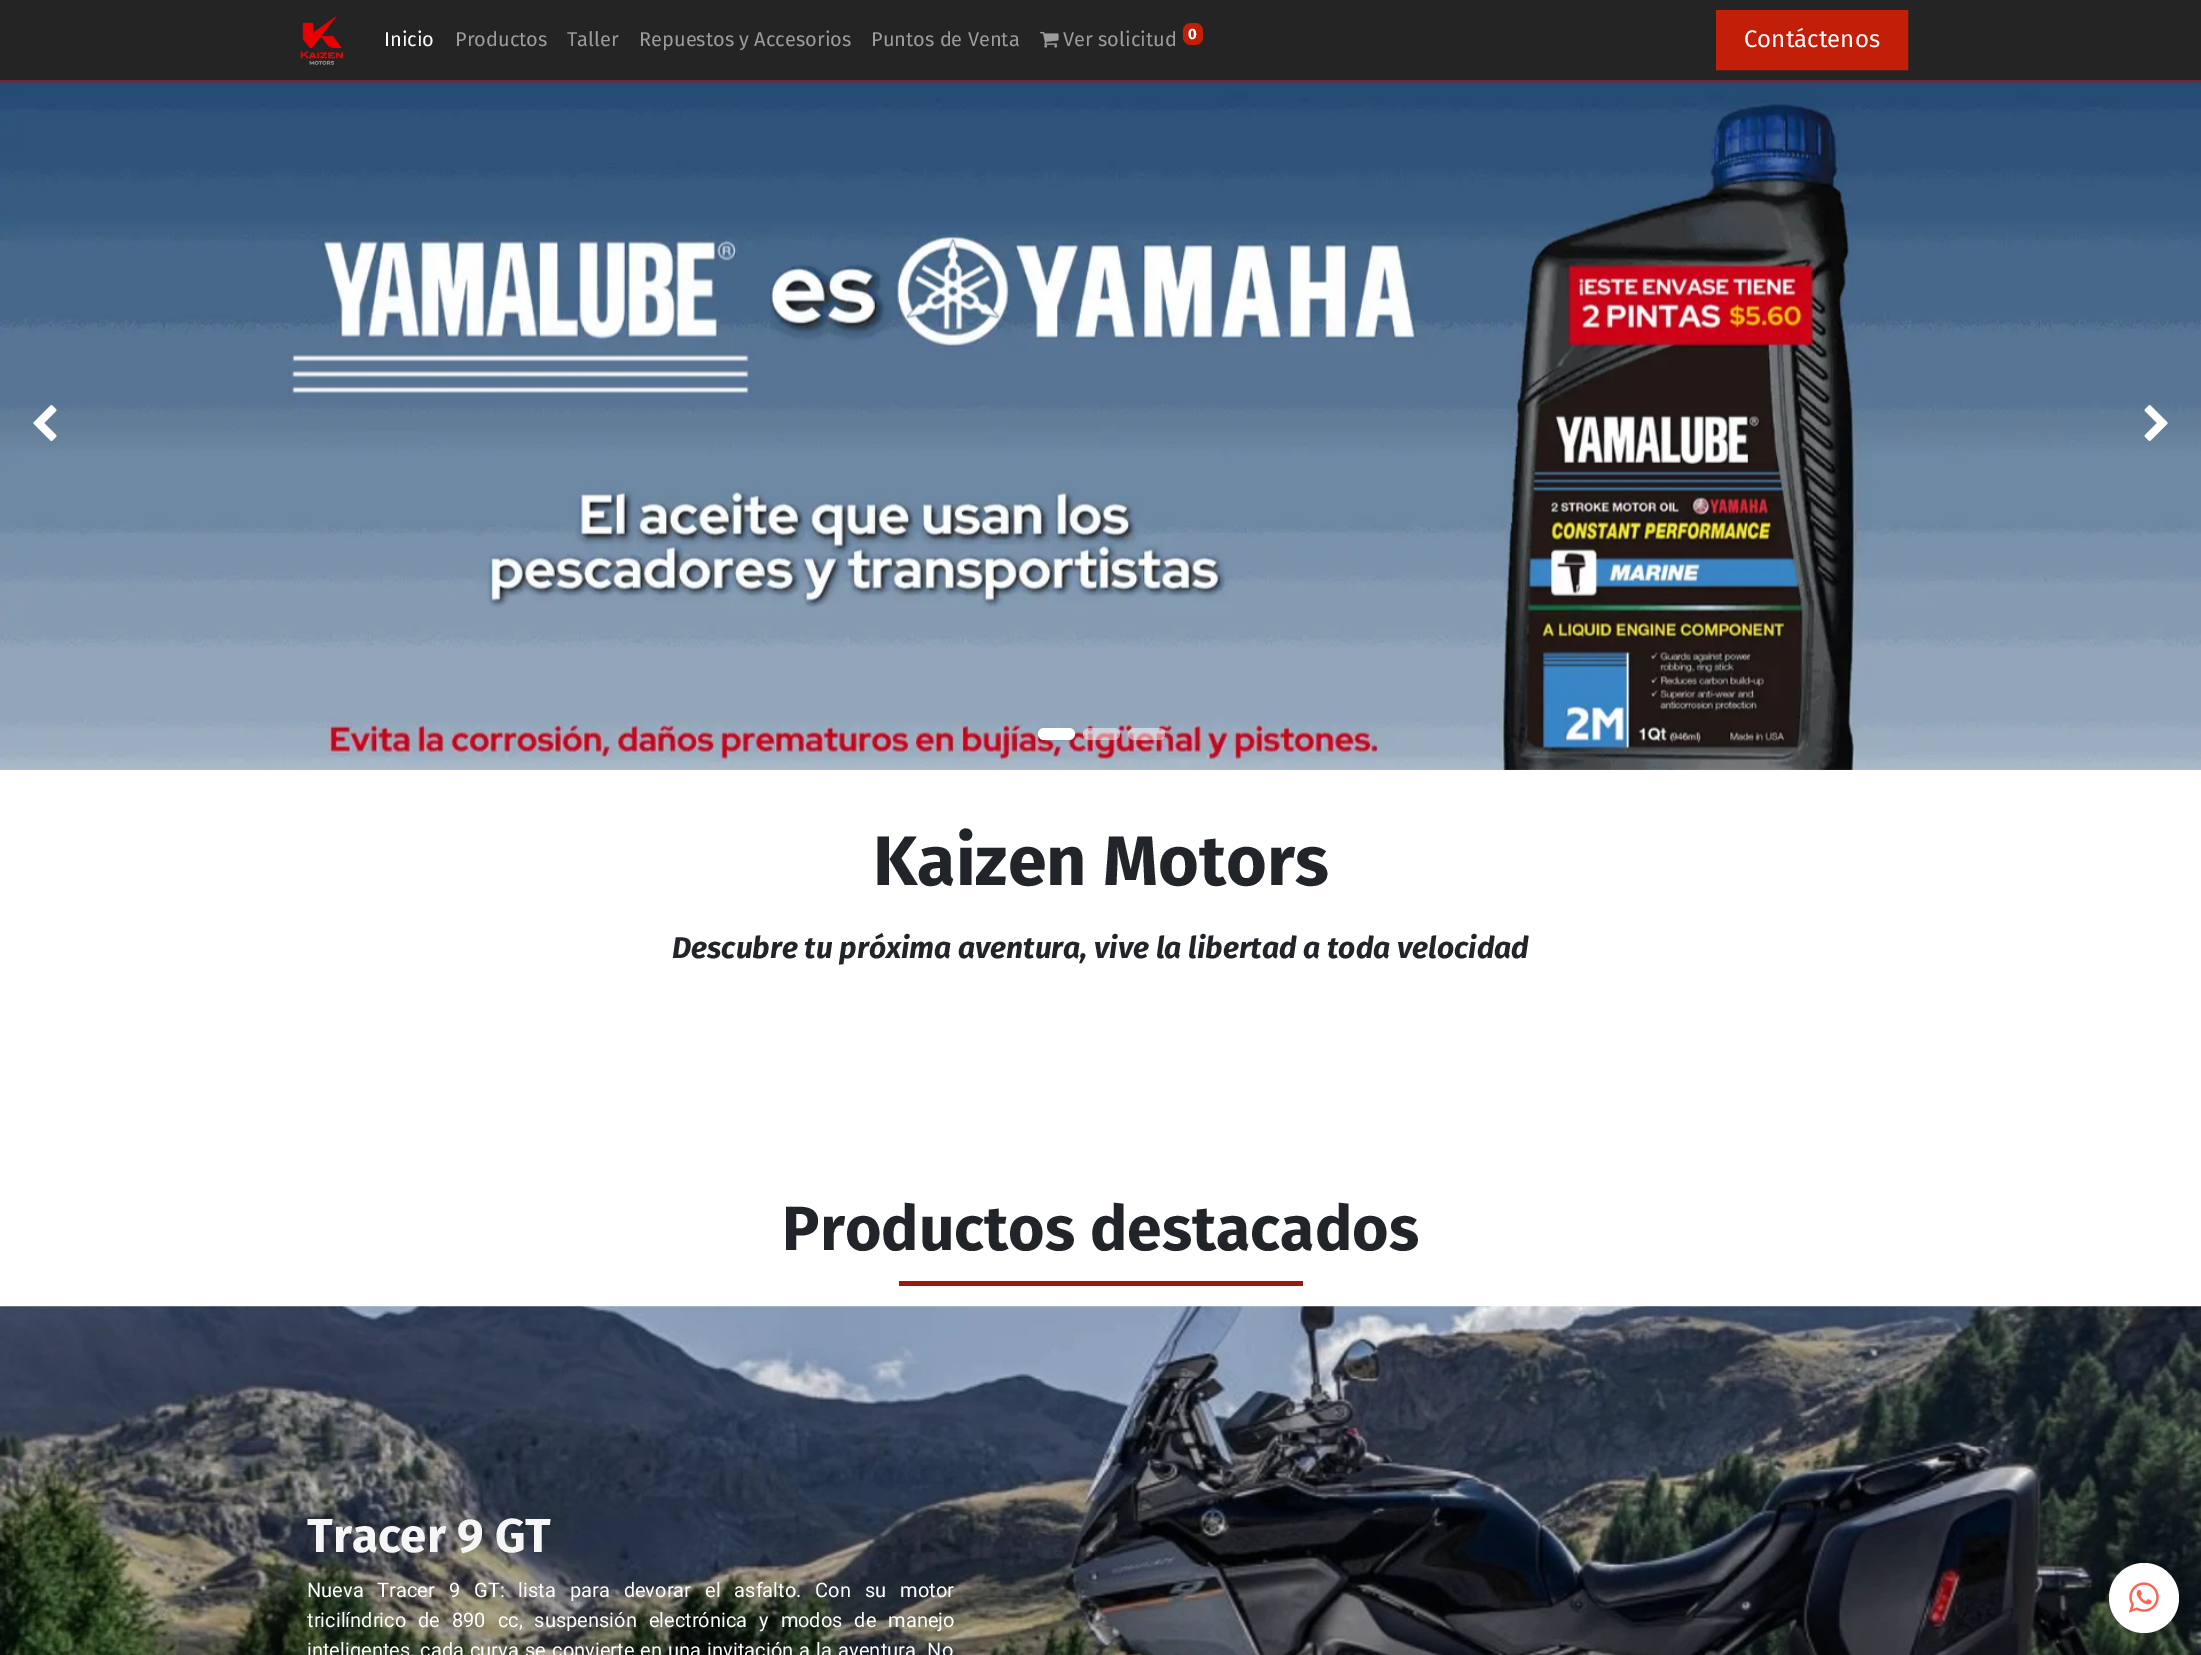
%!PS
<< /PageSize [2201 1655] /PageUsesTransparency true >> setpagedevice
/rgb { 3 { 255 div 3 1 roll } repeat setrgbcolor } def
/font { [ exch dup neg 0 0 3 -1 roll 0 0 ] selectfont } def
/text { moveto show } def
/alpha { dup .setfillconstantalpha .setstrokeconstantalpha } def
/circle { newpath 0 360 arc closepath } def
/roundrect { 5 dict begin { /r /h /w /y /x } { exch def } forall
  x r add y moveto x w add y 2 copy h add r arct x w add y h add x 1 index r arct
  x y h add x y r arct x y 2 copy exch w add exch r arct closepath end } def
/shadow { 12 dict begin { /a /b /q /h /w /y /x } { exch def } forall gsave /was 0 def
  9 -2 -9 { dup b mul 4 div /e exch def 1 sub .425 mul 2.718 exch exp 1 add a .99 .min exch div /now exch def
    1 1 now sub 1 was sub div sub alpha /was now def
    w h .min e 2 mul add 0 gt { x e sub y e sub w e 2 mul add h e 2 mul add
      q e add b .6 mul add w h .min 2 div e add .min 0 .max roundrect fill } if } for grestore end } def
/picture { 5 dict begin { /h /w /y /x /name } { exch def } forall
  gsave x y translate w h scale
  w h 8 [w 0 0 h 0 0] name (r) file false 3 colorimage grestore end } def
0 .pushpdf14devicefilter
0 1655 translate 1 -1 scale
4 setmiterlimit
255 255 255 rgb
0 0 2201 1655 rectfill
(img_03.rgb) 0 80 2201 690 picture
156 0 0 rgb
0 1 2201 80 0 2 1 shadow
36 36 36 rgb
0 0 2201 80 rectfill
(img_01.rgb) 300 15 44 50 picture
(img_02.rgb) 1040 31 19 17 picture
195 30 8 rgb
1183 23 20 22 8 roundrect fill
1717.5 11.5 moveto 189 0 rlineto 0 57 rlineto -189 0 rlineto closepath gsave fill grestore
3 setlinewidth
stroke
(img_04.rgb) 33 405 24 36 picture
(img_05.rgb) 2144 405 24 36 picture
0 0 0 rgb
1038 729 37 12 6 2 0.1 shadow
255 255 255 rgb
1038 728 37 12 6 roundrect fill
0.5 alpha
1083 728 37 12 6 roundrect fill
1128 728 37 12 6 roundrect fill
1 alpha
158 22 13 rgb
899 1281 404 5 rectfill
(img_06.rgb) 0 1306 2201 349 picture
0 0 0 rgb
2109 1573 70 70 35 14 0.2 shadow
255 255 255 rgb
2144 1598 35 circle fill
(img_07.rgb) 2128 1582 31 31 picture
/FiraSans-Regular 20 font
(Inicio) 384 46 text
156 156 156 rgb
(Productos) 455 46 text
(Taller) 567 46 text
(Repuestos y Accesorios) 639 46 text
(Puntos de Venta) 871 46 text
(Ver solicitud) 1063 46 text
/FiraSans-Bold 15 font
255 255 255 rgb
(0) 1188 39 text
/FiraSans-Regular 24 font
(Contáctenos) 1744 47 text
/FiraSans-Bold 70 font
33 37 41 rgb
(Kaizen Motors) 873 885 text
/FiraSans-BoldItalic 30 font
(Descubre tu próxima aventura, vive la libertad a toda velocidad) 672 958 text
/FiraSans-Bold 62.5 font
(Productos destacados) 782 1250 text
/FiraSans-Bold 47.5 font
247 246 246 rgb
(Tracer 9 GT) 307 1552 text
/Roboto-Regular 20 font
255 255 255 rgb
307 1597 moveto 9 0 32 (Nueva Tracer 9 GT: lista para devorar el asfalto. Con su motor) widthshow
307 1627 moveto 7 0 32 (tricilíndrico de 890 cc, suspensión electrónica y modos de manejo) widthshow
307 1657 moveto 1.25 0 32 (inteligentes, cada curva se convierte en una invitación a la aventura. No) widthshow
.poppdf14devicefilter showpage
